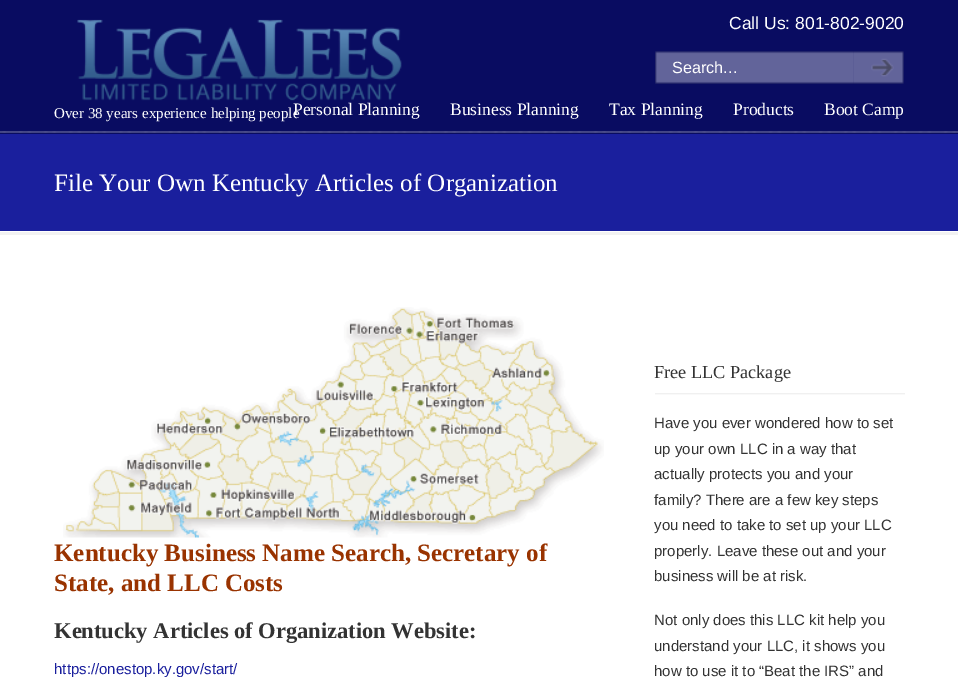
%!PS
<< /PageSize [958 677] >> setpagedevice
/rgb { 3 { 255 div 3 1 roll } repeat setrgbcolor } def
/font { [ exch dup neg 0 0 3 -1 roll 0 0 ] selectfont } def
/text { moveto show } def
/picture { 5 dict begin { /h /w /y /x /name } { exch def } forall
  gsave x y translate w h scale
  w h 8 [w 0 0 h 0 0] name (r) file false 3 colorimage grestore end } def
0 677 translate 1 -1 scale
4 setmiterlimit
26 31 157 rgb
0 0 958 677 rectfill
9 12 97 rgb
0 0 958 134 rectfill
(img_01.rgb) 77 19 325 82 picture
(img_02.rgb) 655 51 199 33 picture
(img_03.rgb) 853 51 51 33 picture
(img_04.rgb) 0 131 958 2 picture
255 255 255 rgb
0 231 958 446 rectfill
242 242 242 rgb
0 232 958 3 rectfill
(img_05.rgb) 63 307 541 231 picture
(img_06.rgb) 655 393 250 2 picture
/LiberationSans-Regular 16.25 font
255 255 255 rgb
(Search...) 672 73 text
/LiberationSans-Regular 17.5 font
(Call Us: 801-802-9020) 729 29 text
/LiberationSerif-Regular 15 font
(Over 38 years experience helping people) 54 118 text
/LiberationSerif-Regular 17.5 font
(Personal Planning) 293 115 text
(Business Planning) 450 115 text
(Tax Planning) 609 115 text
(Products) 733 115 text
(Boot Camp) 824 115 text
/LiberationSerif-Regular 25 font
(File Your Own Kentucky Articles of Organization) 54 191 text
/LiberationSerif-Bold 25 font
153 51 0 rgb
(Kentucky Business Name Search, Secretary of) 54 561 text
(State, and LLC Costs) 54 591 text
/LiberationSerif-Bold 22.5 font
51 51 51 rgb
(Kentucky Articles of Organization Website:) 54 638 text
/LiberationSans-Regular 15 font
26 31 157 rgb
(https://onestop.ky.gov/start/) 54 674 text
/LiberationSerif-Regular 18.25 font
51 51 51 rgb
(Free LLC Package) 654 378 text
/LiberationSans-Regular 15 font
(Have you ever wondered how to set) 654 428 text
(up your own LLC in a way that) 654 454 text
(actually protects you and your) 654 479 text
(family? There are a few key steps) 654 505 text
(you need to take to set up your LLC) 654 530 text
(properly. Leave these out and your) 654 556 text
(business will be at risk.) 654 581 text
(Not only does this LLC kit help you) 654 625 text
(understand your LLC, it shows you) 654 651 text
(how to use it to “Beat the IRS” and) 654 676 text
showpage
